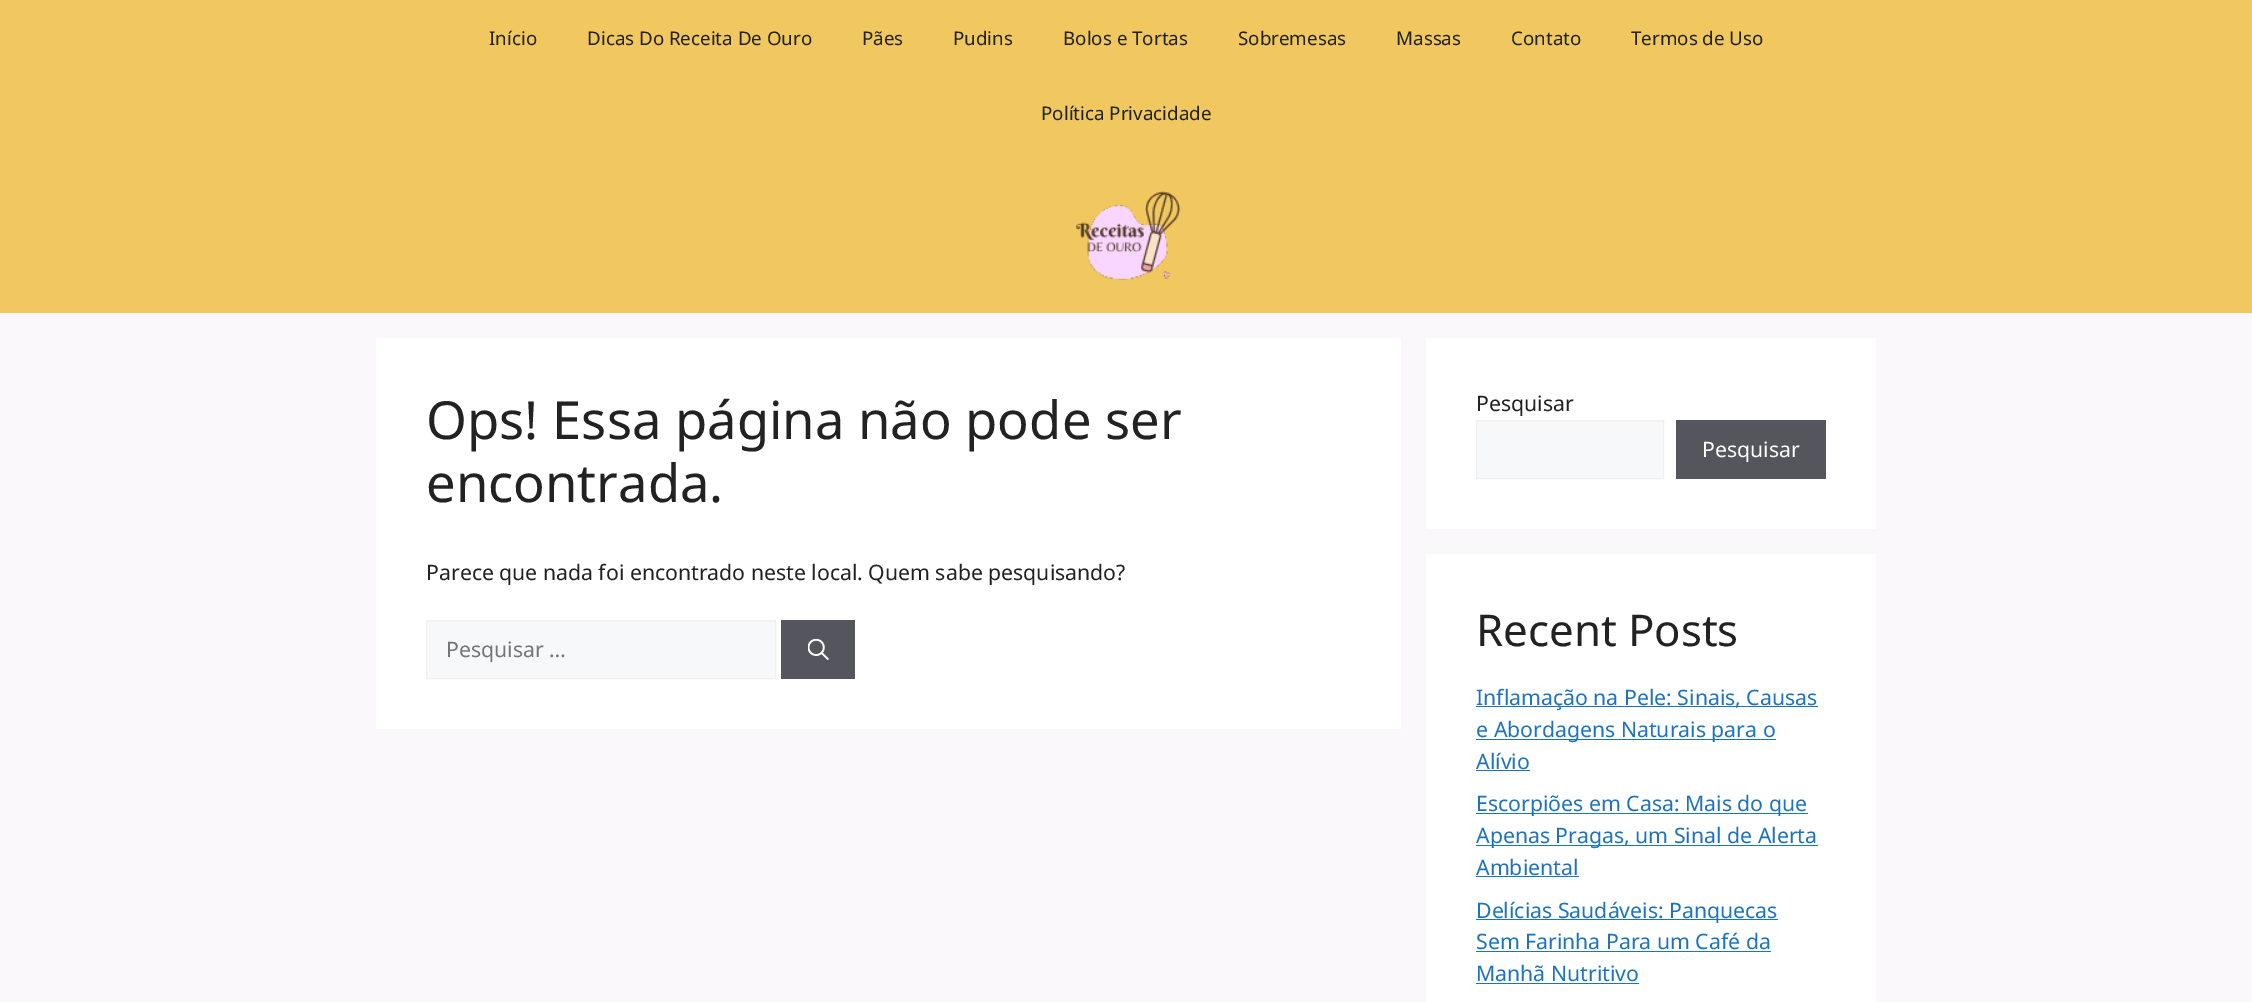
%!PS
<< /PageSize [2252 1002] >> setpagedevice
/rgb { 3 { 255 div 3 1 roll } repeat setrgbcolor } def
/font { [ exch dup neg 0 0 3 -1 roll 0 0 ] selectfont } def
/text { moveto show } def
/picture { 5 dict begin { /h /w /y /x /name } { exch def } forall
  gsave x y translate w h scale
  w h 8 [w 0 0 h 0 0] name (r) file false 3 colorimage grestore end } def
0 1002 translate 1 -1 scale
4 setmiterlimit
251 248 251 rgb
0 0 2252 1002 rectfill
241 200 96 rgb
0 0 2252 313 rectfill
(img_01.rgb) 1076 191 105 89 picture
255 255 255 rgb
376 338 1025 391 rectfill
247 248 249 rgb
426.5 620.5 moveto 349 0 rlineto 0 58 rlineto -349 0 rlineto closepath gsave fill grestore
240 240 240 rgb
stroke
85 85 94 rgb
781 620 74 59 rectfill
(img_02.rgb) 808 639 21 21 picture
255 255 255 rgb
1426 338 450 191 rectfill
247 248 249 rgb
1476.5 420.5 moveto 187 0 rlineto 0 58 rlineto -187 0 rlineto closepath gsave fill grestore
240 240 240 rgb
stroke
85 85 94 rgb
1676 420 150 59 rectfill
255 255 255 rgb
1426 554 450 448 rectfill
30 115 190 rgb
1476 706 342 1 rectfill
1476 739 300 1 rectfill
1476 770 54 1 rectfill
1476 813 332 1 rectfill
1476 845 342 1 rectfill
1476 876 103 1 rectfill
1476 919 302 1 rectfill
1476 951 295 1 rectfill
1476 983 163 1 rectfill
/NotoSans-Regular 18.75 font
34 34 34 rgb
(Início) 489 45 text
(Dicas Do Receita De Ouro) 587 45 text
(Pães) 862 45 text
(Pudins) 953 45 text
(Bolos e Tortas) 1063 45 text
(Sobremesas) 1238 45 text
(Massas) 1396 45 text
(Contato) 1511 45 text
(Termos de Uso) 1631 45 text
(Política Privacidade) 1041 120 text
/NotoSans-Regular 52.5 font
(Ops! Essa página não pode ser) 426 439 text
(encontrada.) 426 502 text
/NotoSans-Regular 21.25 font
(Parece que nada foi encontrado neste local. Quem sabe pesquisando?) 426 580 text
117 117 117 rgb
(Pesquisar …) 446 657 text
34 34 34 rgb
(Pesquisar) 1476 411 text
255 255 255 rgb
(Pesquisar) 1702 457 text
/NotoSans-Regular 43.75 font
34 34 34 rgb
(Recent Posts) 1476 646 text
/NotoSans-Regular 21.25 font
30 115 190 rgb
(Inflamação na Pele: Sinais, Causas) 1476 705 text
(e Abordagens Naturais para o) 1476 737 text
(Alívio) 1476 769 text
(Escorpiões em Casa: Mais do que) 1476 811 text
(Apenas Pragas, um Sinal de Alerta) 1476 843 text
(Ambiental) 1476 875 text
(Delícias Saudáveis: Panquecas) 1476 918 text
(Sem Farinha Para um Café da) 1476 949 text
(Manhã Nutritivo) 1476 981 text
showpage
